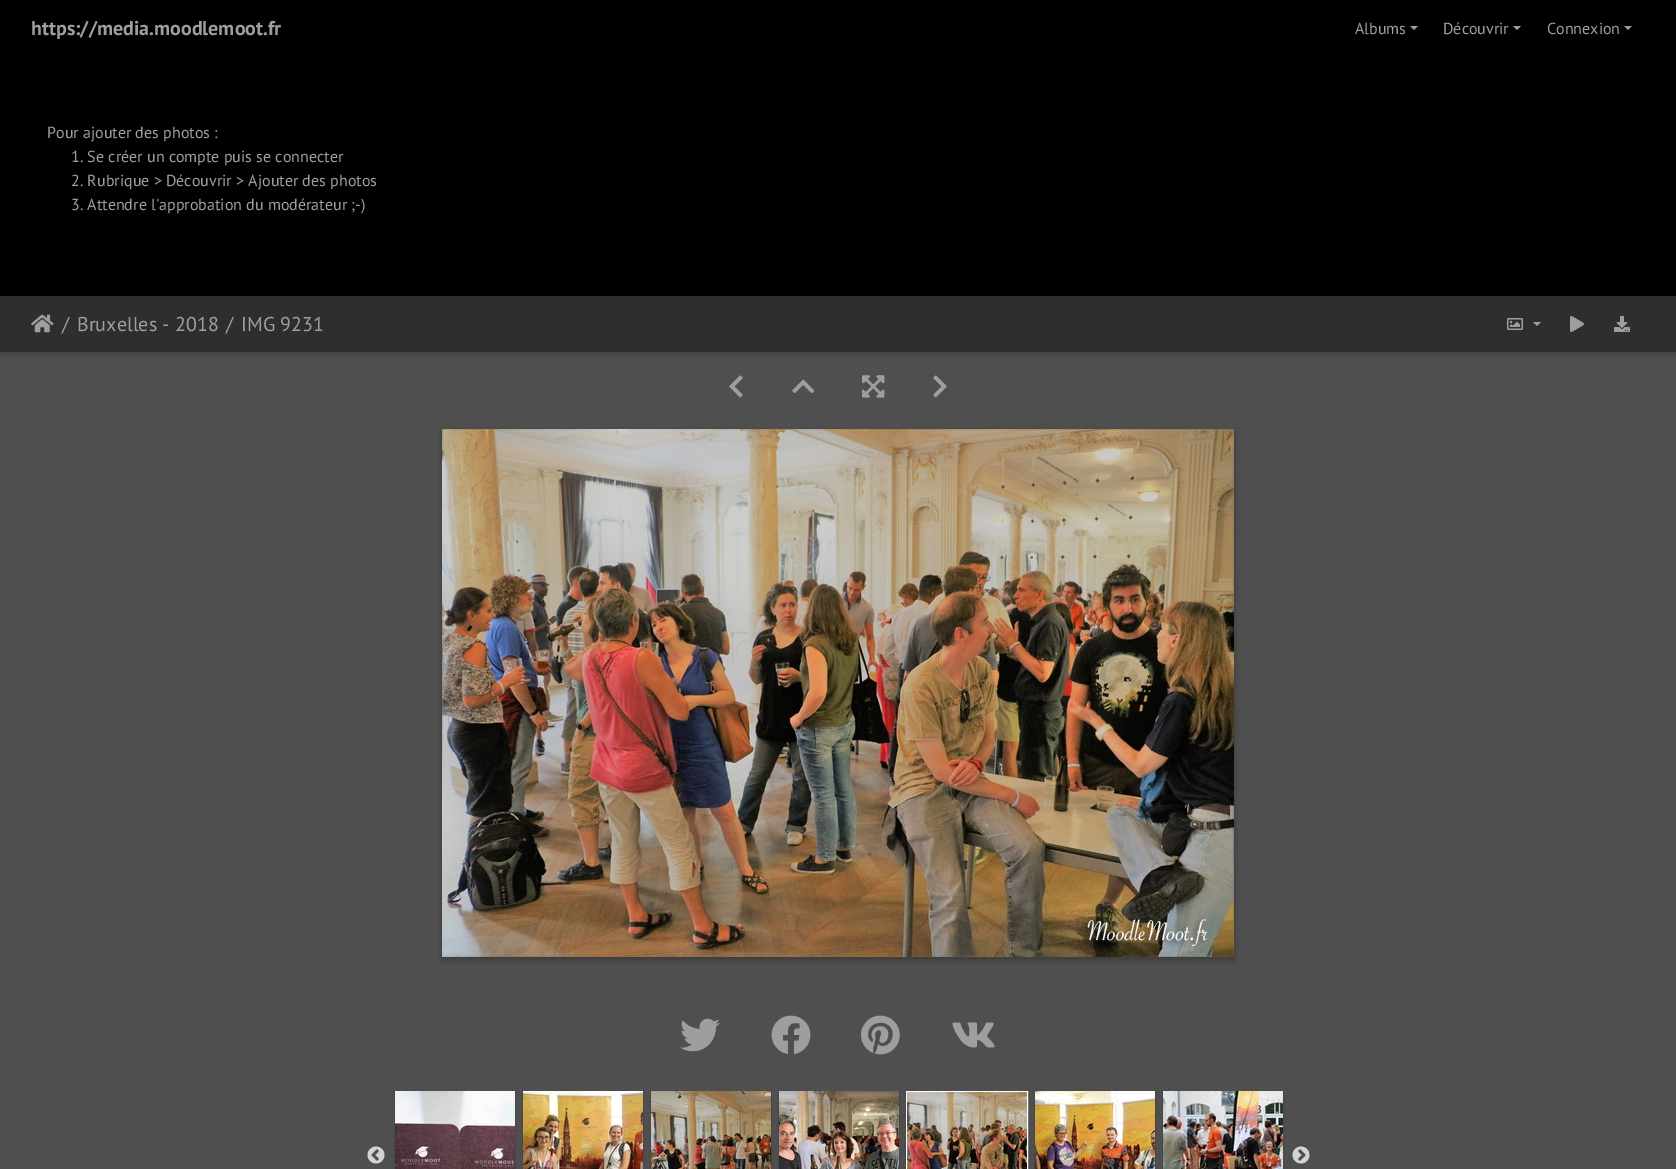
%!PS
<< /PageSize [1676 1169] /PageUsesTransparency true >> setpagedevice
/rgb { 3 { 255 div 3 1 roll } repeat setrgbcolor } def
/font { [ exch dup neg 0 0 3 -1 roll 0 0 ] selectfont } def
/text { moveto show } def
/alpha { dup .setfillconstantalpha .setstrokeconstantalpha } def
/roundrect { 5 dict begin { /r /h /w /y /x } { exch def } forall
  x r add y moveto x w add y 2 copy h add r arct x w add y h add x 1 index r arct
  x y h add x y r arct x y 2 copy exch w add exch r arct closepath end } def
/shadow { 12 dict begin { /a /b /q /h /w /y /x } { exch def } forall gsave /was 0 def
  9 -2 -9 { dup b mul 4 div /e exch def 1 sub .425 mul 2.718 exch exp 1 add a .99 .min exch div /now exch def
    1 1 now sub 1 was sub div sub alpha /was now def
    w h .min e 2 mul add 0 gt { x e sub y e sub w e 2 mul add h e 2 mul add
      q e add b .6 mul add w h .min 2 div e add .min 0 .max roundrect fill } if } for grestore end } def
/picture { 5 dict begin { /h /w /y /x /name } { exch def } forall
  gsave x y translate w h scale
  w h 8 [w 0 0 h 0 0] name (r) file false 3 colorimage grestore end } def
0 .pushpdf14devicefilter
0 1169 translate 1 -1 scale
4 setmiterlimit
79 79 79 rgb
0 0 1676 1169 rectfill
0 0 0 rgb
0 0 1676 296 rectfill
158 158 158 rgb
1410 26 moveto 8 0 rlineto -4 4 rlineto closepath fill
1513 26 moveto 8 0 rlineto -4 4 rlineto closepath fill
1624 26 moveto 8 0 rlineto -4 4 rlineto closepath fill
0 0 0 rgb
1 300 1674 54 0 2.5 0.2 shadow
46 46 46 rgb
0 296 1676 56 rectfill
(img_01.rgb) 31 314 23 19 picture
(img_02.rgb) 1507 318 16 12 picture
158 158 158 rgb
1533 322 moveto 8 0 rlineto -4 4 rlineto closepath fill
(img_03.rgb) 1570 316 14 16 picture
(img_04.rgb) 1614 316 16 16 picture
(img_05.rgb) 729 375 14 23 picture
(img_06.rgb) 792 379 22 14 picture
(img_07.rgb) 862 375 23 23 picture
(img_08.rgb) 933 375 14 23 picture
0 0 0 rgb
442 432 792 528 0 3 0.23 shadow
(img_09.rgb) 442 429 792 528 picture
(img_10.rgb) 680 1018 40 34 picture
(img_11.rgb) 771 1015 40 39 picture
(img_12.rgb) 861 1015 39 40 picture
(img_13.rgb) 952 1022 43 26 picture
(img_14.rgb) 367 1146 18 18 picture
395 1092 120 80 0 1 0.24 shadow
(img_15.rgb) 395 1091 120 78 picture
523 1092 120 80 0 1 0.24 shadow
(img_16.rgb) 523 1091 120 78 picture
651 1092 120 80 0 1 0.24 shadow
(img_17.rgb) 651 1091 120 78 picture
779 1092 120 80 0 1 0.24 shadow
(img_18.rgb) 779 1091 120 78 picture
906 1092 122 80 0 1 0.24 shadow
255 255 255 rgb
906.5 1091.5 121 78 rectstroke
(img_19.rgb) 907 1092 120 77 picture
0 0 0 rgb
1035 1092 120 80 0 1 0.24 shadow
(img_20.rgb) 1035 1091 120 78 picture
1163 1092 120 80 0 1 0.24 shadow
(img_21.rgb) 1163 1091 120 78 picture
(img_22.rgb) 1292 1146 18 18 picture
/PTSans-Bold 20 font
158 158 158 rgb
(https://media.moodlemoot.fr) 31 35 text
/PTSans-Regular 16 font
(Albums) 1355 34 text
(Découvrir) 1443 34 text
(Connexion) 1547 34 text
(Pour ajouter des photos :) 47 138 text
(1. Se créer un compte puis se connecter) 71 162 text
(2. Rubrique > Découvrir > Ajouter des photos) 71 186 text
(3. Attendre l'approbation du modérateur ;-\)) 71 210 text
/PTSans-Regular 20 font
(/) 62 331 text
(Bruxelles - 2018) 77 331 text
(/) 226 331 text
(IMG 9231) 241 331 text
.poppdf14devicefilter showpage
